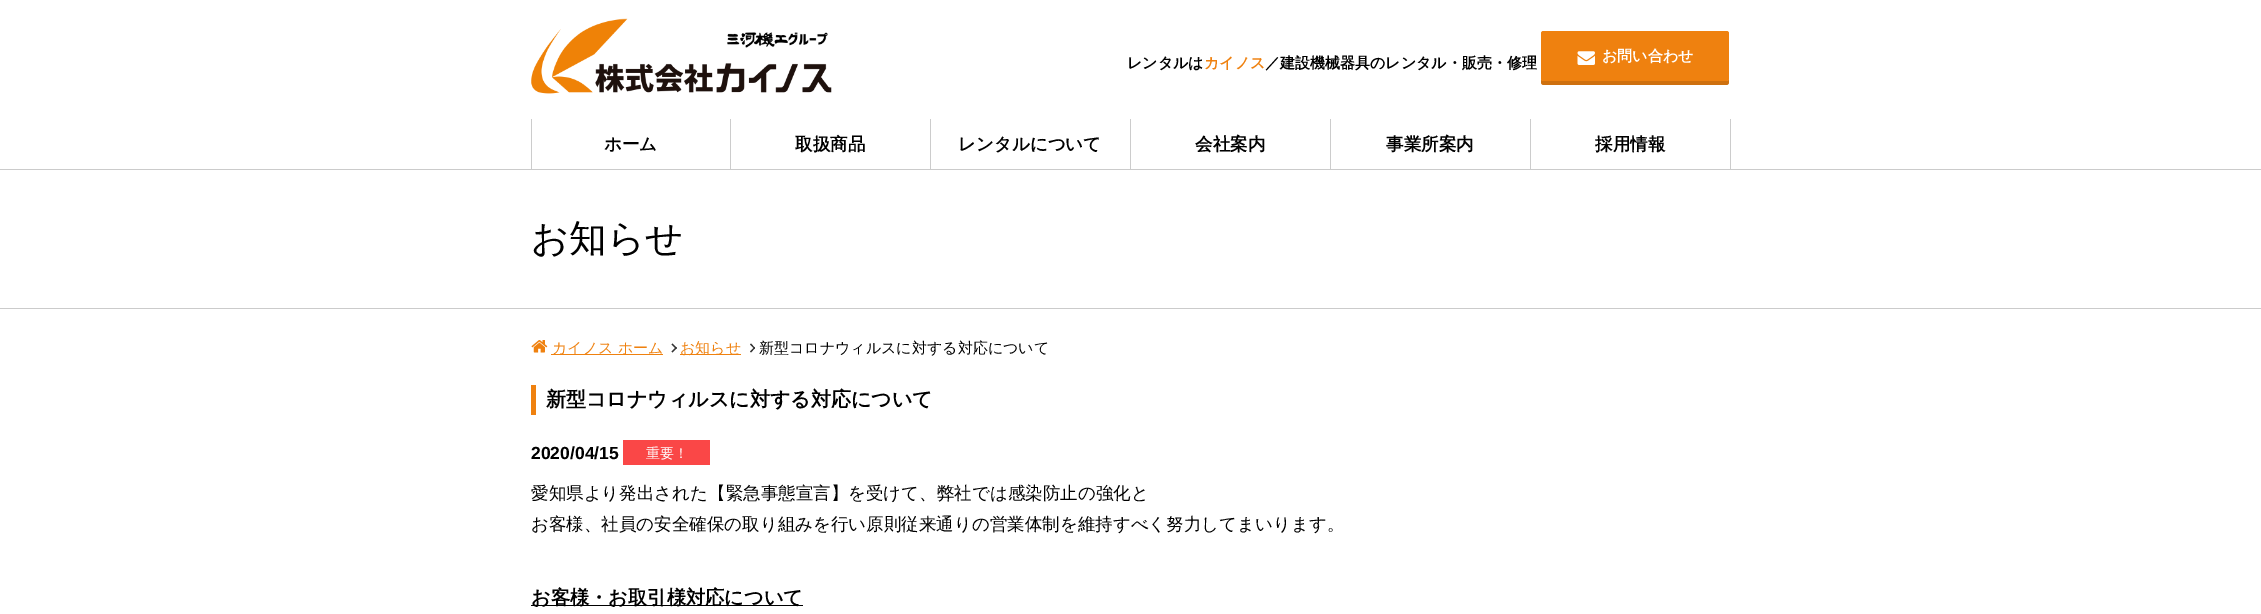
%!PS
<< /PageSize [2261 614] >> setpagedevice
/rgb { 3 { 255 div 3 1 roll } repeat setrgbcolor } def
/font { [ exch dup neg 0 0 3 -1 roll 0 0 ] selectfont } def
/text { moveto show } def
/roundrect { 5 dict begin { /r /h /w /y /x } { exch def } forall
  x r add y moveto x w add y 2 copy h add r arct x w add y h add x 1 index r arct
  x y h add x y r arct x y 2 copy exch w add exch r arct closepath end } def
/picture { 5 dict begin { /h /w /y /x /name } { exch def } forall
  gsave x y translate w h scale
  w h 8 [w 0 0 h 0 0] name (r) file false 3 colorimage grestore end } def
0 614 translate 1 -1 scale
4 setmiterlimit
255 255 255 rgb
0 0 2261 614 rectfill
(img_01.rgb) 531 18 301 76 picture
206 112 15 rgb
1541 36 moveto 0 46 rlineto 0 2 1 3 3 3 rcurveto 182 0 rlineto 2 0 3 -1 3 -3 rcurveto 0 -46 rlineto 0 43 rlineto 0 1 -1 2 -3 2 rcurveto -182 0 rlineto -2 0 -3 -1 -3 -2 rcurveto closepath fill
239 129 15 rgb
1541 31 188 50 2.5 roundrect fill
(img_02.rgb) 1577 51 18 14 picture
204 204 204 rgb
730 119 1 50 rectfill
531 119 1 50 rectfill
930 119 1 50 rectfill
1130 119 1 50 rectfill
1330 119 1 50 rectfill
1530 119 1 50 rectfill
1730 119 1 50 rectfill
203 203 203 rgb
0 169 2261 1 rectfill
0 308 2261 1 rectfill
(img_03.rgb) 531 340 17 13 picture
239 129 15 rgb
551 354 112 1 rectfill
51 51 51 rgb
672.5 343.5 moveto 4.5 4.5 rlineto -1 1 rlineto -4.5 -4.5 rlineto closepath fill
676 347 moveto 1 1 rlineto -4.5 4.5 rlineto -1 -1 rlineto closepath fill
239 129 15 rgb
680 354 61 1 rectfill
51 51 51 rgb
751 343.5 moveto 4 4.5 rlineto -0.5 1 rlineto -4.5 -4.5 rlineto closepath fill
754.5 347 moveto 0.5 1 rlineto -4 4.5 rlineto -1 -1 rlineto closepath fill
239 129 15 rgb
531 385 5 30 rectfill
250 71 71 rgb
623 440 87 25 rectfill
0 0 0 rgb
531 605 272 1 rectfill
/WenQuanYiZenHei-Bold 15 font
(レンタルは) 1127 68 text
239 129 15 rgb
(カイノス) 1204 68 text
0 0 0 rgb
(／建設機械器具のレンタル・販売・修理) 1265 68 text
255 255 255 rgb
(お問い合わせ) 1602 61 text
/WenQuanYiZenHei-Bold 17.5 font
0 0 0 rgb
(ホーム) 604 150 text
(取扱商品) 795 150 text
(レンタルについて) 958 150 text
(会社案内) 1195 150 text
(事業所案内) 1386 150 text
(採用情報) 1595 150 text
/WenQuanYiZenHei-Medium 37.5 font
(お知らせ) 531 251 text
/WenQuanYiZenHei-Medium 15 font
239 129 15 rgb
(カイノス ホーム) 552 353 text
(お知らせ) 680 353 text
0 0 0 rgb
(新型コロナウィルスに対する対応について) 759 353 text
/WenQuanYiZenHei-Bold 20 font
(新型コロナウィルスに対する対応について) 546 406 text
/LiberationSans-Bold 17.5 font
(2020/04/15) 531 459 text
/WenQuanYiZenHei-Medium 14 font
255 255 255 rgb
(重要！) 646 458 text
/WenQuanYiZenHei-Medium 17.5 font
0 0 0 rgb
(愛知県より発出された【緊急事態宣言】を受けて、弊社では感染防止の強化と) 531 499 text
(お客様、社員の安全確保の取り組みを行い原則従来通りの営業体制を維持すべく努力してまいります。) 531 530 text
/WenQuanYiZenHei-Bold 19.25 font
(お客様・お取引様対応について) 531 604 text
showpage
